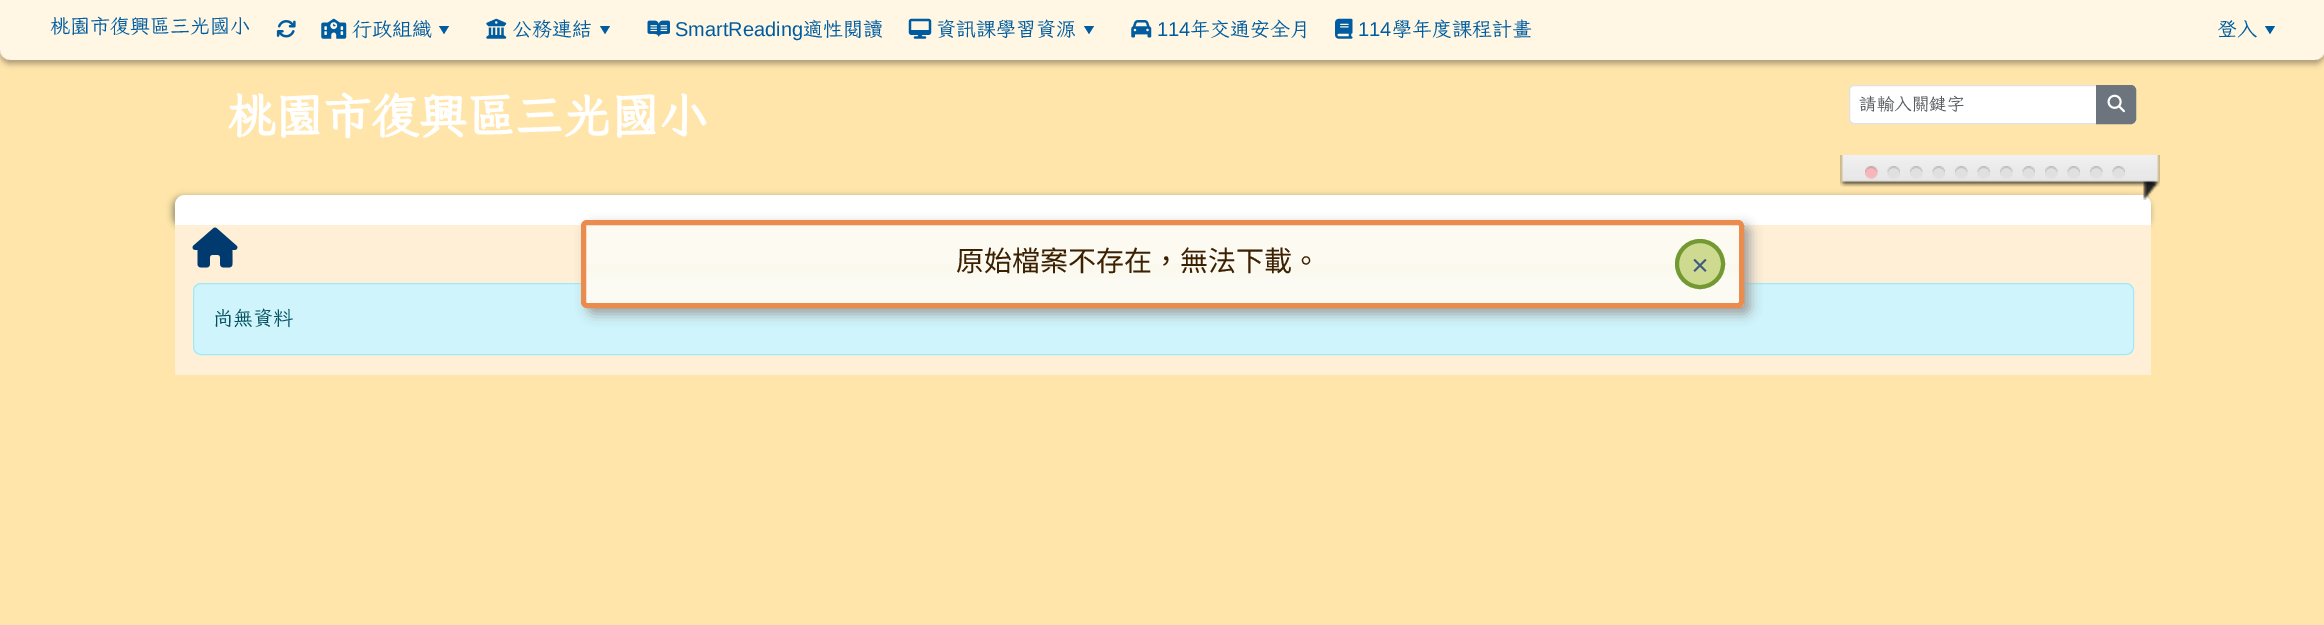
%!PS
<< /PageSize [2324 625] /PageUsesTransparency true >> setpagedevice
/rgb { 3 { 255 div 3 1 roll } repeat setrgbcolor } def
/font { [ exch dup neg 0 0 3 -1 roll 0 0 ] selectfont } def
/text { moveto show } def
/alpha { dup .setfillconstantalpha .setstrokeconstantalpha } def
/circle { newpath 0 360 arc closepath } def
/roundrect { 5 dict begin { /r /h /w /y /x } { exch def } forall
  x r add y moveto x w add y 2 copy h add r arct x w add y h add x 1 index r arct
  x y h add x y r arct x y 2 copy exch w add exch r arct closepath end } def
/shadow { 12 dict begin { /a /b /q /h /w /y /x } { exch def } forall gsave /was 0 def
  9 -2 -9 { dup b mul 4 div /e exch def 1 sub .425 mul 2.718 exch exp 1 add a .99 .min exch div /now exch def
    1 1 now sub 1 was sub div sub alpha /was now def
    w h .min e 2 mul add 0 gt { x e sub y e sub w e 2 mul add h e 2 mul add
      q e add b .6 mul add w h .min 2 div e add .min 0 .max roundrect fill } if } for grestore end } def
/picture { 5 dict begin { /h /w /y /x /name } { exch def } forall
  gsave x y translate w h scale
  w h 8 [w 0 0 h 0 0] name (r) file false 3 colorimage grestore end } def
0 .pushpdf14devicefilter
0 625 translate 1 -1 scale
4 setmiterlimit
255 229 170 rgb
0 0 2324 625 rectfill
gsave
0 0 moveto 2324 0 rlineto 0 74 rlineto -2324 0 rlineto closepath 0 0 moveto 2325 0 rlineto 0 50 rlineto 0 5.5 -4.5 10 -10 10 rcurveto -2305 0 rlineto -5.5 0 -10 -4.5 -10 -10 rcurveto closepath eoclip newpath
50 50 50 rgb
0 4 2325 60 10 3 0.4 shadow
grestore
0.67 alpha
255 255 255 rgb
0 0 moveto 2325 0 rlineto 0 50 rlineto 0 5.5 -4.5 10 -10 10 rcurveto -2305 0 rlineto -5.5 0 -10 -4.5 -10 -10 rcurveto closepath fill
1 alpha
(img_01.rgb) 276 20 20 18 picture
(img_02.rgb) 321 18 26 21 picture
0 92 160 rgb
439 26 moveto 10 0 rlineto -5 8 rlineto closepath fill
(img_03.rgb) 486 18 21 21 picture
600 26 moveto 10 0 rlineto -5 8 rlineto closepath fill
(img_04.rgb) 647 20 23 17 picture
(img_05.rgb) 908 18 24 21 picture
1084 26 moveto 10 0 rlineto -5 8 rlineto closepath fill
(img_06.rgb) 1131 20 21 18 picture
(img_07.rgb) 1335 18 18 21 picture
2265 26 moveto 10 0 rlineto -5 8 rlineto closepath fill
255 255 255 rgb
1854 86 moveto 242 0 rlineto 0 37 rlineto -242 0 rlineto -2 0 -4 -2 -4 -4 rcurveto 0 -29 rlineto 0 -2 2 -4 4 -4 rcurveto closepath fill
222 226 230 rgb
1854 85.5 moveto 243.5 0 rlineto 0 38 rlineto -243.5 0 rlineto -2.5 0 -4.5 -2 -4.5 -4.5 rcurveto 0 -29 rlineto 0 -2.5 2 -4.5 4.5 -4.5 rcurveto closepath stroke
108 117 125 rgb
2096.5 85.5 moveto 34.5 0 rlineto 2.5 0 4.5 2 4.5 4.5 rcurveto 0 29 rlineto 0 2.5 -2 4.5 -4.5 4.5 rcurveto -34.5 0 rlineto closepath gsave fill grestore
stroke
(img_08.rgb) 2107 94 18 19 picture
50 50 50 rgb
175 199 1976 30 10 3 0.2 shadow
173 198 1976 30 10 3 0.2 shadow
171 195 1977 30 10 3 0.2 shadow
255 255 255 rgb
185 195 moveto 1956 0 rlineto 5.5 0 10 4.5 10 10 rcurveto 0 20 rlineto -1976 0 rlineto 0 -20 rlineto 0 -5.5 4.5 -10 10 -10 rcurveto closepath fill
(img_09.rgb) 1840 155 320 45 picture
(img_10.rgb) 1865 166 13 13 picture
(img_11.rgb) 1887 166 13 13 picture
(img_12.rgb) 1910 166 13 13 picture
(img_11.rgb) 1932 166 13 13 picture
(img_13.rgb) 1955 166 13 13 picture
(img_11.rgb) 1977 166 13 13 picture
(img_13.rgb) 2000 166 13 13 picture
(img_11.rgb) 2022 166 13 13 picture
(img_13.rgb) 2045 166 13 13 picture
(img_11.rgb) 2067 166 13 13 picture
(img_13.rgb) 2090 166 13 13 picture
(img_11.rgb) 2112 166 13 13 picture
255 239 214 rgb
175 225 1976 150 rectfill
207 244 252 rgb
193.5 283.5 1940 71 7.5 roundrect gsave fill grestore
158 234 249 rgb
stroke
158 158 158 rgb
588 226 1162 88 6 6 1 shadow
(img_14.rgb) 581 220 1163 87 picture
233 140 77 rgb
5 setlinewidth
583.5 222.5 1158 83 3.5 roundrect stroke
206 218 143 rgb
1700 264 23 circle gsave fill grestore
114 153 50 rgb
4 setlinewidth
stroke
(img_15.rgb) 192 227 46 41 picture
/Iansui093-Regular 20 font
0 92 160 rgb
(桃園市復興區三光國小) 50 33 text
(行政組織) 352 36 text
(公務連結) 512 36 text
/LiberationSans-Regular 20 font
(SmartReading) 675 36 text
/Iansui093-Regular 20 font
(適性閱讀) 803 36 text
(資訊課學習資源) 936 36 text
/LiberationSans-Regular 20 font
(114) 1157 36 text
/Iansui093-Regular 20 font
(年交通安全月) 1190 36 text
/LiberationSans-Regular 20 font
(114) 1358 36 text
/Iansui093-Regular 20 font
(學年度課程計畫) 1392 36 text
(登入) 2217 36 text
/Iansui093-Bold 48 font
255 255 255 rgb
(桃園市復興區三光國小) 227 133 text
/Iansui093-Regular 17.5 font
89 92 95 rgb
(請輸入關鍵字) 1859 110 text
/NotoSansTC-Regular 28 font
59 32 1 rgb
(原始檔案不存在，無法下載。) 956 271 text
/NotoSansTC-Bold 20 font
64 90 128 rgb
(×) 1690 273 text
/Iansui093-Regular 20 font
5 81 96 rgb
(尚無資料) 213 325 text
.poppdf14devicefilter showpage
